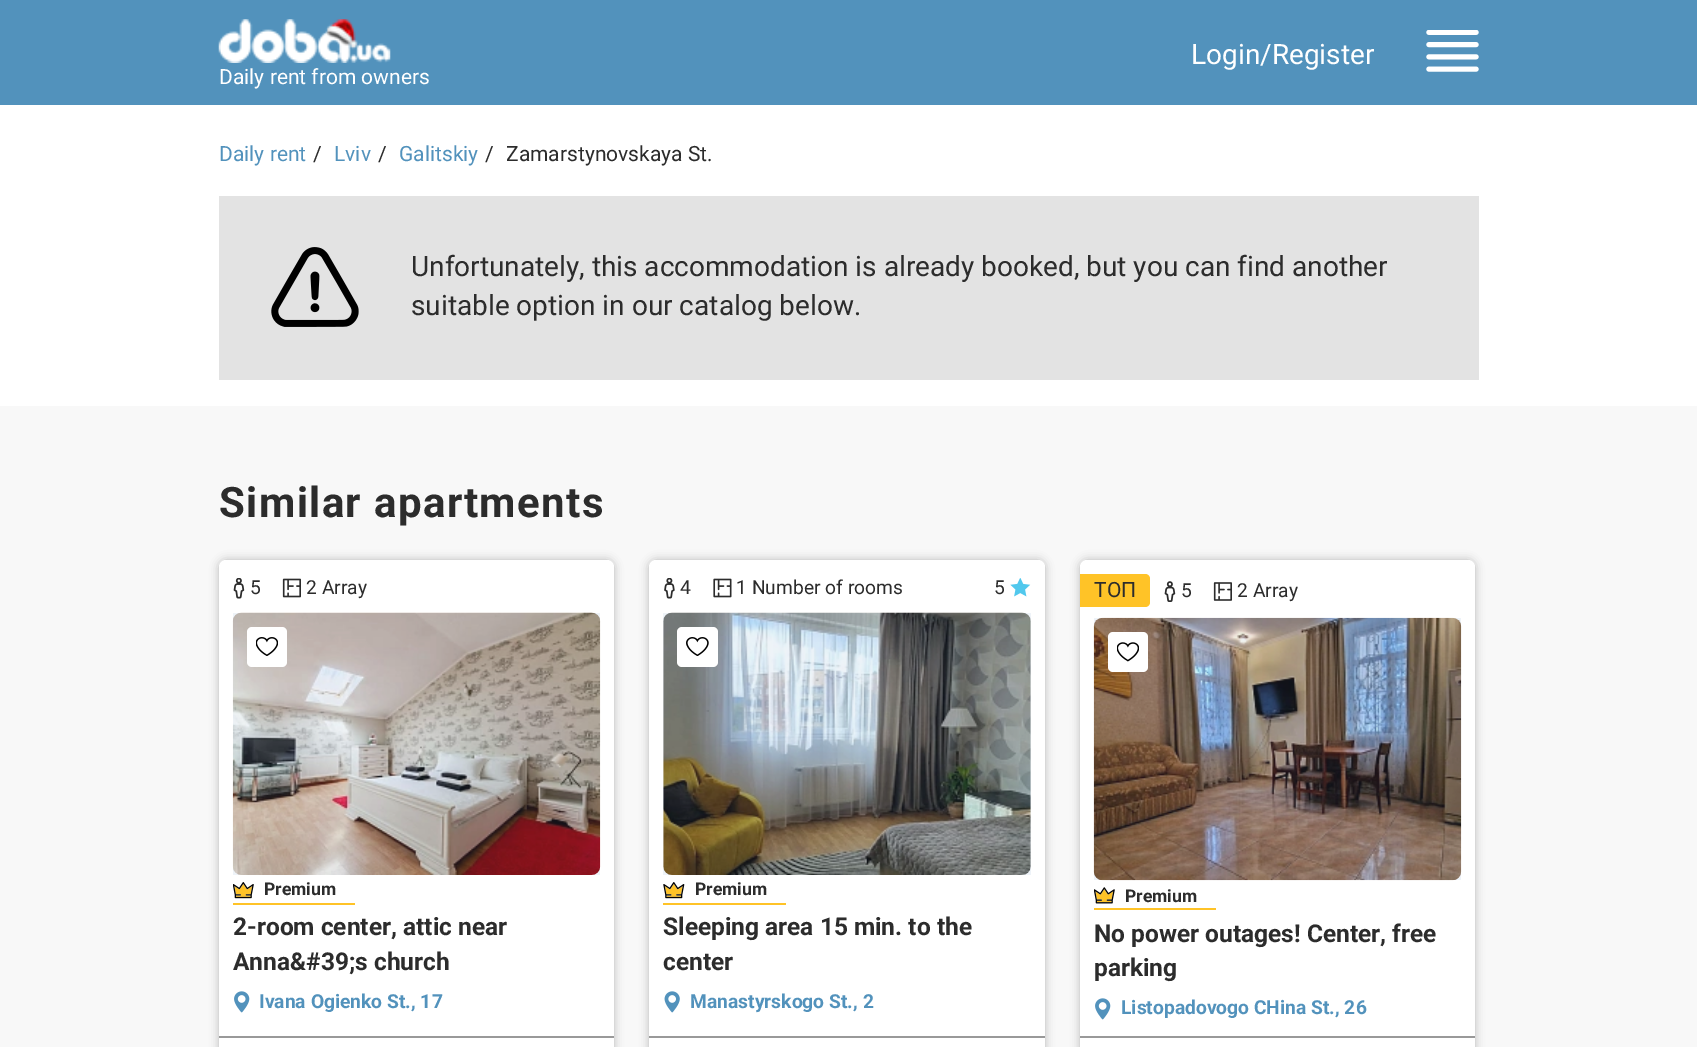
%!PS
<< /PageSize [1697 1047] /PageUsesTransparency true >> setpagedevice
/rgb { 3 { 255 div 3 1 roll } repeat setrgbcolor } def
/font { [ exch dup neg 0 0 3 -1 roll 0 0 ] selectfont } def
/text { moveto show } def
/alpha { dup .setfillconstantalpha .setstrokeconstantalpha } def
/roundrect { 5 dict begin { /r /h /w /y /x } { exch def } forall
  x r add y moveto x w add y 2 copy h add r arct x w add y h add x 1 index r arct
  x y h add x y r arct x y 2 copy exch w add exch r arct closepath end } def
/shadow { 12 dict begin { /a /b /q /h /w /y /x } { exch def } forall gsave /was 0 def
  9 -2 -9 { dup b mul 4 div /e exch def 1 sub .425 mul 2.718 exch exp 1 add a .99 .min exch div /now exch def
    1 1 now sub 1 was sub div sub alpha /was now def
    w h .min e 2 mul add 0 gt { x e sub y e sub w e 2 mul add h e 2 mul add
      q e add b .6 mul add w h .min 2 div e add .min 0 .max roundrect fill } if } for grestore end } def
/picture { 5 dict begin { /h /w /y /x /name } { exch def } forall
  gsave x y translate w h scale
  w h 8 [w 0 0 h 0 0] name (r) file false 3 colorimage grestore end } def
0 .pushpdf14devicefilter
0 1047 translate 1 -1 scale
4 setmiterlimit
255 255 255 rgb
0 0 1697 1047 rectfill
82 146 188 rgb
0 0 1697 105 rectfill
(img_01.rgb) 1426 30 53 42 picture
(img_02.rgb) 218 19 173 44 picture
227 227 227 rgb
219 196 1260 184 rectfill
(img_03.rgb) 271 247 88 80 picture
248 248 248 rgb
0 406 1697 641 rectfill
0 0 0 rgb
219 560 395 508 7 4.5 0.25 shadow
255 255 255 rgb
219 560 395 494 7 roundrect fill
238 243 248 rgb
233 613 367 262 rectfill
(img_04.rgb) 233 578 12 21 picture
(img_05.rgb) 282 578 19 20 picture
(img_06.rgb) 232 612 369 263 picture
255 255 255 rgb
247 627 40 40 5 roundrect fill
(img_07.rgb) 256 637 22 19 picture
(img_08.rgb) 233 882 21 17 picture
255 195 39 rgb
233 903 122 2 rectfill
(img_09.rgb) 234 991 16 22 picture
153 153 153 rgb
219 1036 395 2 rectfill
0 0 0 rgb
649 560 396 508 7 4.5 0.25 shadow
255 255 255 rgb
649 560 396 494 7 roundrect fill
238 243 248 rgb
663 613 368 262 rectfill
(img_10.rgb) 664 578 11 21 picture
(img_11.rgb) 713 578 19 20 picture
(img_12.rgb) 1010 578 21 19 picture
(img_13.rgb) 663 612 368 263 picture
255 255 255 rgb
677 627 41 40 5 roundrect fill
(img_14.rgb) 686 637 23 19 picture
(img_15.rgb) 663 882 22 17 picture
255 195 39 rgb
663 903 123 2 rectfill
(img_16.rgb) 664 991 16 22 picture
153 153 153 rgb
649 1036 396 2 rectfill
0 0 0 rgb
1080 560 395 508 7 4.5 0.25 shadow
255 255 255 rgb
1080 560 395 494 7 roundrect fill
238 243 248 rgb
1094 618 367 262 rectfill
255 195 39 rgb
1080 574 moveto 65 0 rlineto 3 0 5 2 5 5 rcurveto 0 23 rlineto 0 3 -2 5 -5 5 rcurveto -65 0 rlineto closepath fill
(img_17.rgb) 1164 581 12 21 picture
(img_18.rgb) 1213 582 19 19 picture
(img_19.rgb) 1093 617 369 264 picture
255 255 255 rgb
1108 632 40 40 5 roundrect fill
(img_20.rgb) 1117 642 22 20 picture
(img_21.rgb) 1094 887 21 17 picture
255 195 39 rgb
1094 908 122 2 rectfill
(img_09.rgb) 1095 998 16 22 picture
153 153 153 rgb
1080 1036 395 2 rectfill
/Roboto-Regular 28 font
255 255 255 rgb
(Login/Register) 1191 64 text
/Roboto-Regular 21 font
(Daily rent from owners) 219 84 text
82 146 188 rgb
(Daily rent) 219 161 text
44 44 44 rgb
(/) 313 161 text
82 146 188 rgb
(Lviv) 334 161 text
44 44 44 rgb
(/) 378 161 text
82 146 188 rgb
(Galitskiy) 399 161 text
44 44 44 rgb
(/) 485 161 text
(Zamarstynovskaya St.) 506 161 text
/Roboto-Regular 28 font
(Unfortunately, this accommodation is already booked, but you can find another) 411 276 text
(suitable option in our catalog below.) 411 315 text
/Roboto-Bold 42 font
219 517 moveto 1.4 0 (Similar apartments) ashow
/Roboto-Regular 19.25 font
(5) 250 594 text
(2 Array) 306 594 text
/Roboto-Bold 17.5 font
(Premium) 264 895 text
/Roboto-Bold 24.5 font
(2-room center, attic near) 233 935 text
(Anna&#39;s church) 233 970 text
/Roboto-Bold 19.25 font
82 146 188 rgb
(Ivana Ogienko St., 17) 259 1008 text
/Roboto-Regular 19.25 font
44 44 44 rgb
(4) 680 594 text
(1 Number of rooms) 736 594 text
(5) 994 594 text
/Roboto-Bold 17.5 font
(Premium) 695 895 text
/Roboto-Bold 24.5 font
(Sleeping area 15 min. to the) 663 935 text
(center) 663 970 text
/Roboto-Bold 19.25 font
82 146 188 rgb
(Manastyrskogo St., 2) 690 1008 text
/Roboto-Regular 21 font
44 44 44 rgb
(ТОП) 1094 597 text
/Roboto-Regular 19.25 font
(5) 1181 597 text
(2 Array) 1237 597 text
/Roboto-Bold 17.5 font
(Premium) 1125 902 text
/Roboto-Bold 24.5 font
(No power outages! Center, free) 1094 942 text
(parking) 1094 976 text
/Roboto-Bold 19.25 font
82 146 188 rgb
(Listopadovogo CHina St., 26) 1121 1014 text
.poppdf14devicefilter showpage
